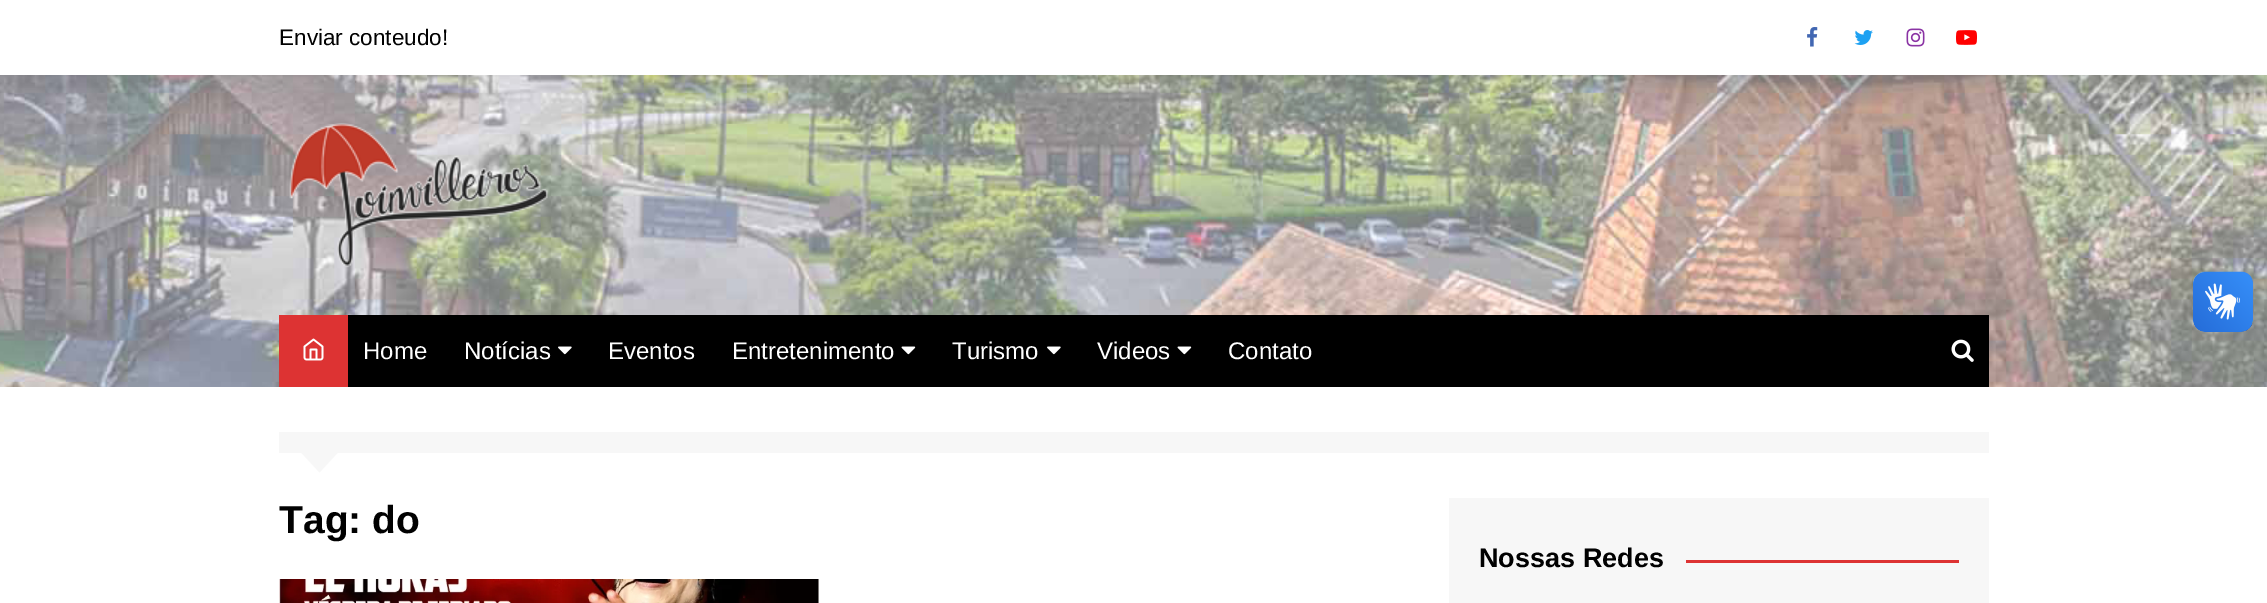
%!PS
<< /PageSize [2267 603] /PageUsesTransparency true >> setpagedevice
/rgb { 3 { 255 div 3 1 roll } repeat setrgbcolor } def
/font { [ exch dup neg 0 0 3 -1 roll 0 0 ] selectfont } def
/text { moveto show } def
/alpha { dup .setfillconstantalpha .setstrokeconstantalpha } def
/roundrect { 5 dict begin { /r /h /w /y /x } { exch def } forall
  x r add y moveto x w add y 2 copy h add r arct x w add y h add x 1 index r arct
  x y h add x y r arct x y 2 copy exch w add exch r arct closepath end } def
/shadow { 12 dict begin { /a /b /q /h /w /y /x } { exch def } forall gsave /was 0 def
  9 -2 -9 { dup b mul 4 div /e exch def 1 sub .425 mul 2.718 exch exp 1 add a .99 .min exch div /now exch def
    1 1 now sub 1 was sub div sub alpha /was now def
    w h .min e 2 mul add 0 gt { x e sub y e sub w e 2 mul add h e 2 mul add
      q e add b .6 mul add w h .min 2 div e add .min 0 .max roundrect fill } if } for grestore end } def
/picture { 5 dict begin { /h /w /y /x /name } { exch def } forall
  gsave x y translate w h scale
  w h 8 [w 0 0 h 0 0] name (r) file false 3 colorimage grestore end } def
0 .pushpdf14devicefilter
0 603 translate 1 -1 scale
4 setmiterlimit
255 255 255 rgb
0 0 2267 603 rectfill
(img_01.rgb) 0 75 2267 312 picture
0 0 0 rgb
8 11 2253 60 0 22.5 0.1 shadow
255 255 255 rgb
0 0 2267 75 rectfill
(img_02.rgb) 1807 27 11 20 picture
(img_03.rgb) 1854 30 19 15 picture
(img_04.rgb) 1906 28 19 19 picture
(img_05.rgb) 1956 30 21 15 picture
(img_06.rgb) 289 123 259 145 picture
0 0 0 rgb
348 315 1641 72 rectfill
221 51 51 rgb
279 315 69 72 rectfill
(img_07.rgb) 303 338 21 23 picture
(img_08.rgb) 558 346 14 9 picture
(img_09.rgb) 901 346 15 9 picture
(img_08.rgb) 1047 346 14 9 picture
(img_09.rgb) 1177 346 15 9 picture
(img_10.rgb) 1951 339 23 23 picture
247 247 247 rgb
279 432 1710 21 rectfill
301.5 453 moveto 36 0 rlineto -18 19.5 rlineto closepath fill
(img_11.rgb) 279 579 540 24 picture
1449 498 540 105 rectfill
221 51 51 rgb
1686 560 273 3 rectfill
(img_12.rgb) 2193 271 60 61 picture
(img_13.rgb) 2193 272 60 60 picture
/LiberationSans-Regular 22.5 font
1 1 1 rgb
(Enviar conteudo!) 279 45 text
/LiberationSans-Regular 24 font
255 255 255 rgb
(Home) 363 359 text
(Notícias) 464 359 text
(Eventos) 608 359 text
(Entretenimento) 732 359 text
(Turismo) 952 359 text
(Videos) 1097 359 text
(Contato) 1228 359 text
/LiberationSans-Bold 39 font
1 1 1 rgb
(Tag: do) 279 533 text
/LiberationSans-Bold 27 font
(Nossas Redes) 1479 567 text
.poppdf14devicefilter showpage
